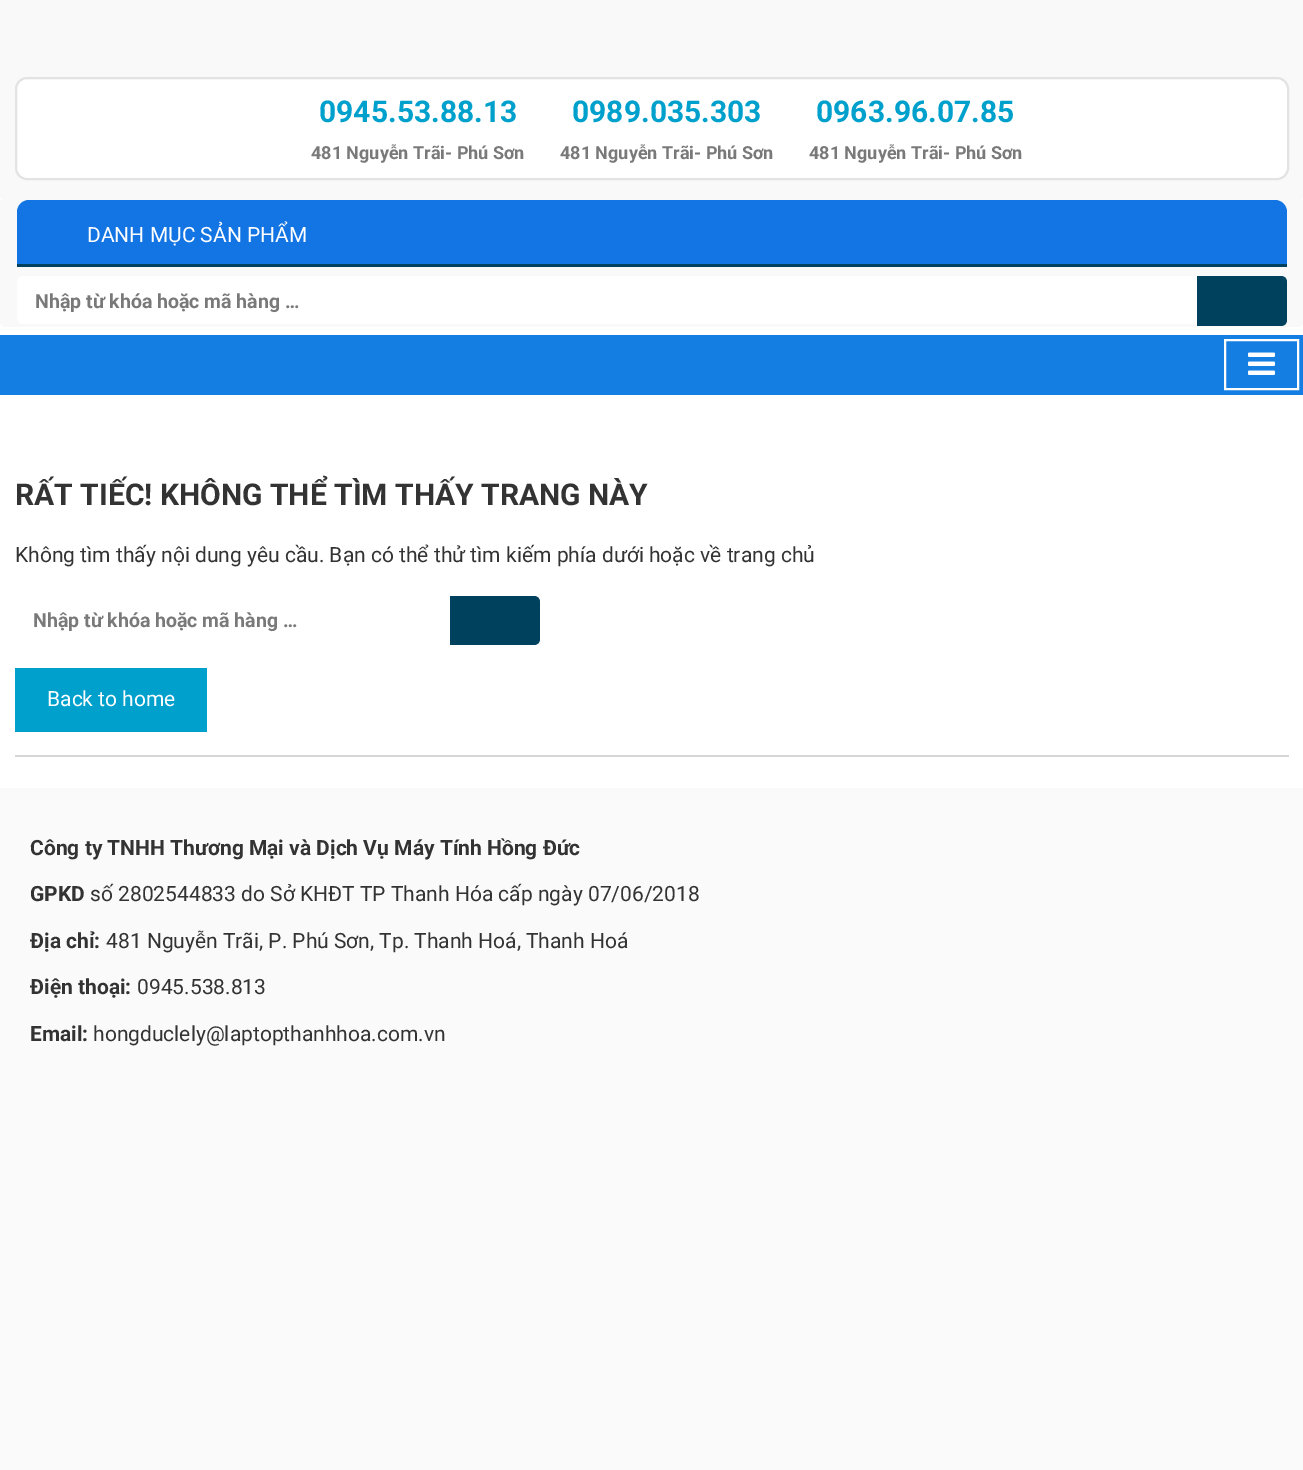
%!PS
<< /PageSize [1303 1470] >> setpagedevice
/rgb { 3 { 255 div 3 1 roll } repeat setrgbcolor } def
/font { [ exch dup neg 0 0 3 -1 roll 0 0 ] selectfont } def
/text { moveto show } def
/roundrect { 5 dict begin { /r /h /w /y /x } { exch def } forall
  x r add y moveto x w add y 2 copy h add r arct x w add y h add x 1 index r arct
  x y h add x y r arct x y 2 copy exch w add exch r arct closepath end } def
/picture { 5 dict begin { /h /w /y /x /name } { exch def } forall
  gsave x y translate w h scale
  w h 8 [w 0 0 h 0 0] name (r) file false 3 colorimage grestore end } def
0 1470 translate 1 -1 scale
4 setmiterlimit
255 255 255 rgb
0 0 1303 1470 rectfill
249 249 249 rgb
0 0 1303 198 rectfill
255 255 255 rgb
16 78 1272 101 11 roundrect gsave fill grestore
227 227 227 rgb
2 setlinewidth
stroke
249 249 249 rgb
0 198 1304 129 6 roundrect fill
19 117 227 rgb
29 200 moveto 1246 0 rlineto 6.5 0 12 5.5 12 12 rcurveto 0 55 rlineto -1270 0 rlineto 0 -55 rlineto 0 -6.5 5.5 -12 12 -12 rcurveto closepath fill
0 65 93 rgb
17 264 1270 3 rectfill
255 255 255 rgb
23 276 moveto 1174 0 rlineto 0 48 rlineto -1174 0 rlineto -3.5 0 -6 -2.5 -6 -6 rcurveto 0 -36 rlineto 0 -3.5 2.5 -6 6 -6 rcurveto closepath fill
20 323 1 1 rectfill
0 65 93 rgb
1197 276 moveto 84 0 rlineto 3.5 0 6 2.5 6 6 rcurveto 0 38 rlineto 0 3.5 -2.5 6 -6 6 rcurveto -84 0 rlineto closepath fill
21 126 226 rgb
0 335 1303 60 rectfill
253 253 253 rgb
1225 340 73 49 rectstroke
(img_01.rgb) 1248 352 27 23 picture
0 65 93 rgb
450 596 moveto 84 0 rlineto 3.5 0 6 2.5 6 6 rcurveto 0 37 rlineto 0 3.5 -2.5 6 -6 6 rcurveto -84 0 rlineto closepath fill
0 160 204 rgb
15 668 192 64 rectfill
214 214 214 rgb
15 755 1274 2 rectfill
250 250 250 rgb
0 788 1303 682 rectfill
/Roboto-Bold 30 font
0 160 204 rgb
(0945.53.88.13) 319 122 text
/Roboto-Bold 18 font
121 121 121 rgb
(481 Nguyễn Trãi- Phú Sơn) 311 159 text
/Roboto-Bold 30 font
0 160 204 rgb
(0989.035.303) 572 122 text
/Roboto-Bold 18 font
121 121 121 rgb
(481 Nguyễn Trãi- Phú Sơn) 560 159 text
/Roboto-Bold 30 font
0 160 204 rgb
(0963.96.07.85) 816 122 text
/Roboto-Bold 18 font
121 121 121 rgb
(481 Nguyễn Trãi- Phú Sơn) 809 159 text
/Roboto-Regular 21 font
255 255 255 rgb
(DANH MỤC SẢN PHẨM) 87 242 text
/Roboto-Bold 19.5 font
121 121 121 rgb
(Nhập từ khóa hoặc mã hàng …) 35 308 text
/Roboto-Bold 30 font
51 51 51 rgb
(RẤT TIẾC! KHÔNG THỂ TÌM THẤY TRANG NÀY) 15 505 text
/Roboto-Regular 21 font
(Không tìm thấy nội dung yêu cầu. Bạn có thể thử tìm kiếm phía dưới hoặc về trang chủ) 15 562 text
/Roboto-Bold 19.5 font
121 121 121 rgb
(Nhập từ khóa hoặc mã hàng …) 33 627 text
/Roboto-Regular 21 font
255 255 255 rgb
(Back to home) 47 706 text
/Roboto-Bold 21 font
51 51 51 rgb
(Công ty TNHH Thương Mại và Dịch Vụ Máy Tính Hồng Đức) 30 855 text
(GPKD) 30 901 text
/Roboto-Regular 21 font
(số 2802544833 do Sở KHĐT TP Thanh Hóa cấp ngày 07/06/2018) 90 901 text
/Roboto-Bold 21 font
(Địa chỉ:) 30 948 text
/Roboto-Regular 21 font
(481 Nguyễn Trãi, P. Phú Sơn, Tp. Thanh Hoá, Thanh Hoá) 106 948 text
/Roboto-Bold 21 font
(Điện thoại:) 30 994 text
/Roboto-Regular 21 font
(0945.538.813) 137 994 text
/Roboto-Bold 21 font
(Email:) 30 1041 text
/Roboto-Regular 21 font
(hongduclely@laptopthanhhoa.com.vn) 93 1041 text
showpage
